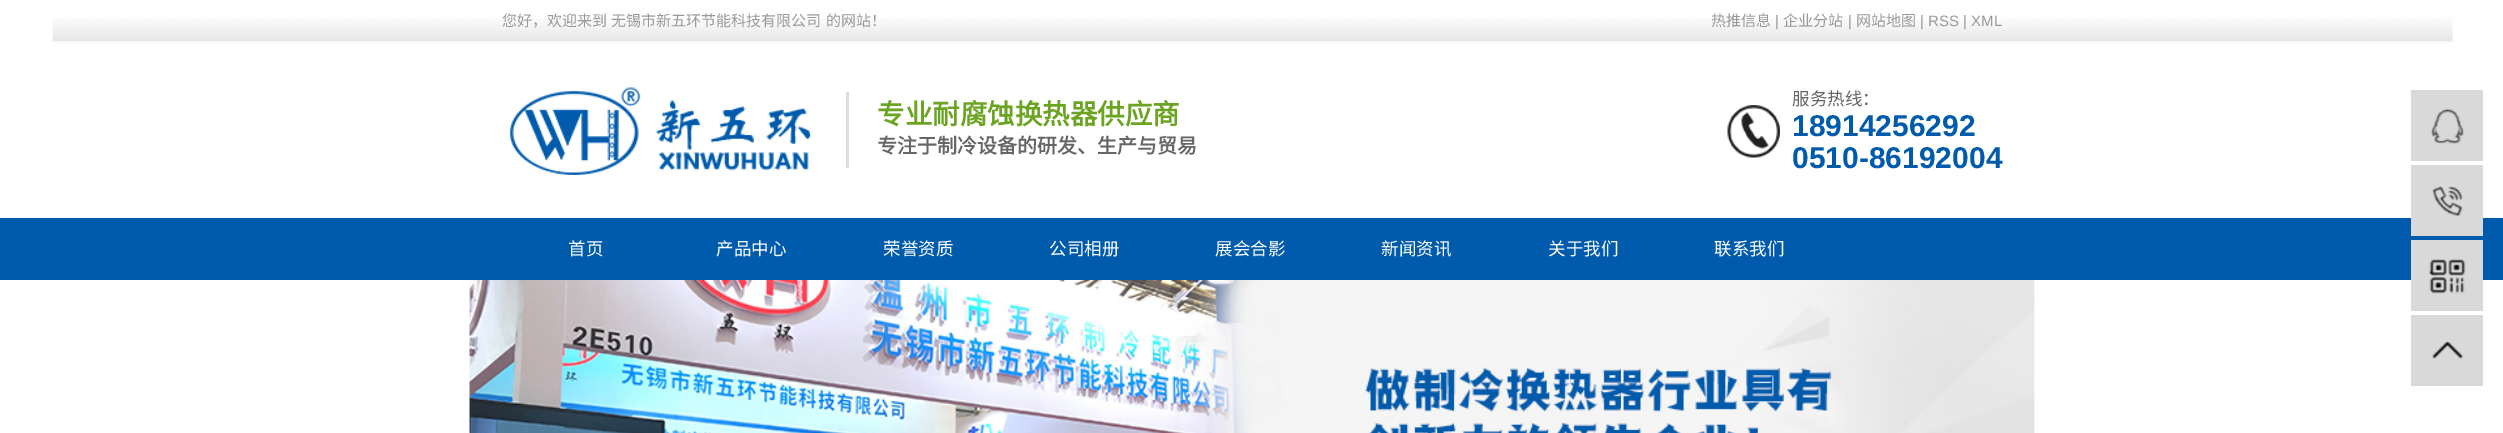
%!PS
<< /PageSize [2503 433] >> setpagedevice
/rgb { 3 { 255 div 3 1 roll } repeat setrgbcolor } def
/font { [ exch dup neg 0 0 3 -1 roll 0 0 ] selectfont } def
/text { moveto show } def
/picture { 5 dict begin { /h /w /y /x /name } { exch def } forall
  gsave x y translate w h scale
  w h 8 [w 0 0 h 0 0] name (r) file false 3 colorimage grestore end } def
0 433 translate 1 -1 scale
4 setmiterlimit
255 255 255 rgb
0 0 2503 433 rectfill
(img_01.rgb) 52 18 2401 25 picture
(img_02.rgb) 509 87 302 88 picture
221 221 221 rgb
846 92 3 76 rectfill
(img_03.rgb) 1727 105 53 53 picture
217 217 217 rgb
2411 90 72 71 rectfill
(img_04.rgb) 2431 108 34 36 picture
0 91 172 rgb
0 218 2503 62 rectfill
217 217 217 rgb
2411 165 72 71 rectfill
(img_05.rgb) 2432 186 31 31 picture
2411 240 72 71 rectfill
(img_06.rgb) 2429 259 37 35 picture
2411 315 72 71 rectfill
(img_07.rgb) 2432 341 32 18 picture
(img_08.rgb) 469 280 1566 153 picture
/NotoSansCJKSC-Regular 15 font
153 153 153 rgb
502 26 moveto 1 0 32 (您好，欢迎来到 无锡市新五环节能科技有限公司 的网站！) widthshow
(热推信息) 1711 26 text
/LiberationSans-Regular 15 font
(|) 1775 26 text
/NotoSansCJKSC-Regular 15 font
(企业分站) 1783 26 text
/LiberationSans-Regular 15 font
(|) 1848 26 text
/NotoSansCJKSC-Regular 15 font
(网站地图) 1856 26 text
/LiberationSans-Regular 15 font
(| RSS | XML) 1920 26 text
/NotoSansCJKSC-Bold 27.5 font
107 164 32 rgb
(专业耐腐蚀换热器供应商) 877 124 text
/NotoSansCJKSC-Bold 20 font
102 102 102 rgb
(专注于制冷设备的研发、生产与贸易) 877 153 text
/NotoSansCJKSC-Regular 17.5 font
(服务热线：) 1792 105 text
/LiberationSans-Bold 30 font
0 91 172 rgb
(18914256292) 1792 136 text
(0510-86192004) 1792 168 text
/NotoSansCJKSC-Regular 17.5 font
255 255 255 rgb
(首页) 568 255 text
(产品中心) 716 255 text
(荣誉资质) 883 255 text
(公司相册) 1049 255 text
(展会合影) 1215 255 text
(新闻资讯) 1381 255 text
(关于我们) 1548 255 text
(联系我们) 1714 255 text
showpage
